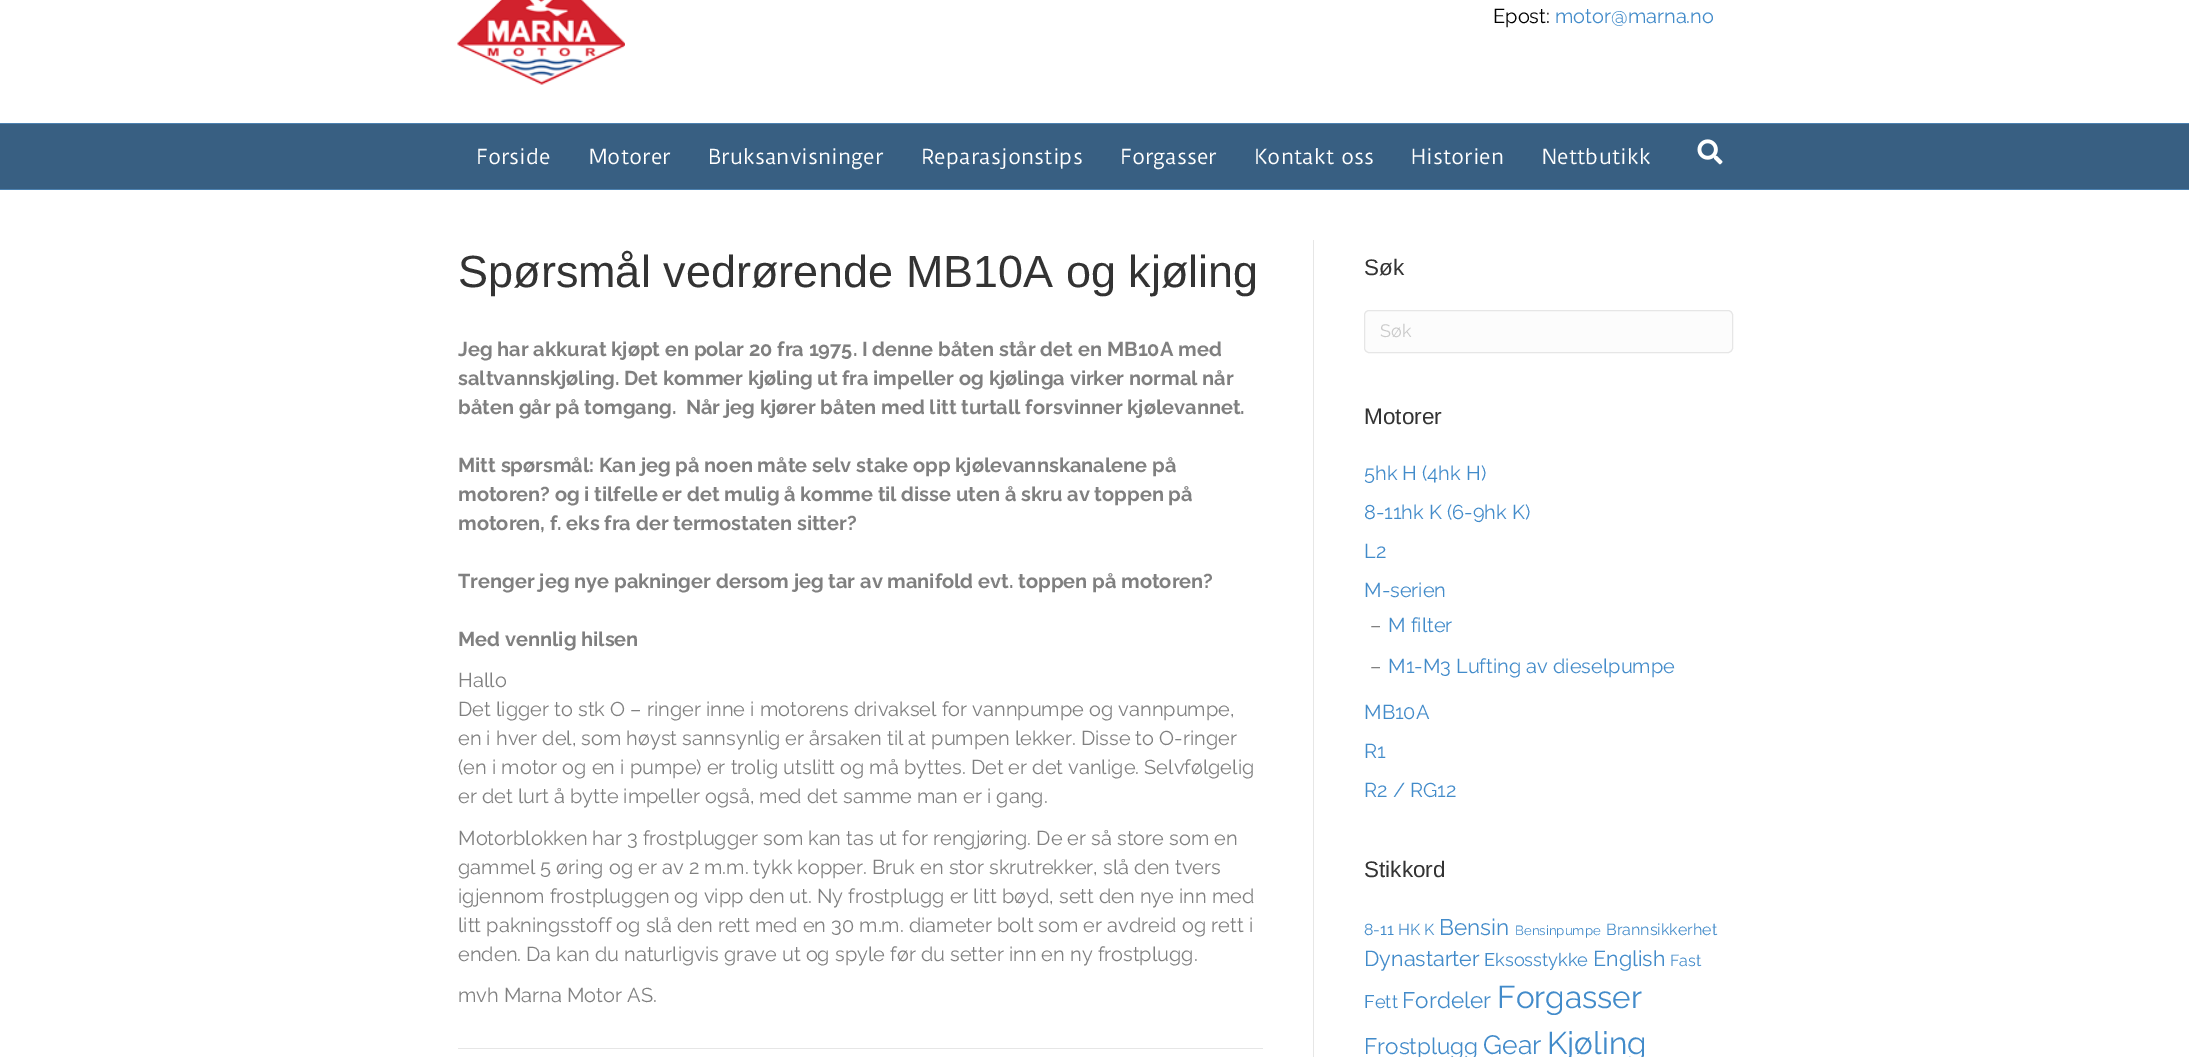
%!PS
<< /PageSize [2189 1057] >> setpagedevice
/rgb { 3 { 255 div 3 1 roll } repeat setrgbcolor } def
/font { [ exch dup neg 0 0 3 -1 roll 0 0 ] selectfont } def
/text { moveto show } def
/roundrect { 5 dict begin { /r /h /w /y /x } { exch def } forall
  x r add y moveto x w add y 2 copy h add r arct x w add y h add x 1 index r arct
  x y h add x y r arct x y 2 copy exch w add exch r arct closepath end } def
/picture { 5 dict begin { /h /w /y /x /name } { exch def } forall
  gsave x y translate w h scale
  w h 8 [w 0 0 h 0 0] name (r) file false 3 colorimage grestore end } def
0 1057 translate 1 -1 scale
4 setmiterlimit
255 255 255 rgb
0 0 2189 1057 rectfill
(img_01.rgb) 457 0 168 85 picture
56 95 130 rgb
0 124 2189 65 rectfill
76 129 176 rgb
0 123 2189 1 rectfill
0 189 2189 1 rectfill
(img_02.rgb) 1697 139 26 26 picture
230 230 230 rgb
1313 240 1 817 rectfill
458 1048 805 1 rectfill
252 252 252 rgb
1364.5 310.5 368 42 4.5 roundrect gsave fill grestore
230 230 230 rgb
stroke
/Raleway-Regular 20 font
0 0 0 rgb
(Epost:) 1493 23 text
66 139 202 rgb
(motor@marna.no) 1555 23 text
/DuruSans-Regular 20 font
255 255 255 rgb
(Forside) 476 164 text
(Motorer) 589 164 text
(Bruksanvisninger) 708 164 text
(Reparasjonstips) 921 164 text
(Forgasser) 1120 164 text
(Kontakt oss) 1254 164 text
(Historien) 1411 164 text
(Nettbutikk) 1542 164 text
/LiberationSans-Regular 45 font
51 51 51 rgb
(Spørsmål vedrørende MB10A og kjøling) 458 287 text
/Raleway-Bold 20 font
128 128 128 rgb
(Jeg har akkurat kjøpt en polar 20 fra 1975. I denne båten står det en MB10A med) 458 356 text
(saltvannskjøling. Det kommer kjøling ut fra impeller og kjølinga virker normal når) 458 385 text
(båten går på tomgang.  Når jeg kjører båten med litt turtall forsvinner kjølevannet.) 458 414 text
(Mitt spørsmål: Kan jeg på noen måte selv stake opp kjølevannskanalene på) 458 472 text
(motoren? og i tilfelle er det mulig å komme til disse uten å skru av toppen på) 458 501 text
(motoren, f. eks fra der termostaten sitter?) 458 530 text
(Trenger jeg nye pakninger dersom jeg tar av manifold evt. toppen på motoren?) 458 588 text
(Med vennlig hilsen) 458 646 text
/Raleway-Regular 20 font
(Hallo) 458 687 text
(Det ligger to stk O – ringer inne i motorens drivaksel for vannpumpe og vannpumpe,) 458 716 text
(en i hver del, som høyst sannsynlig er årsaken til at pumpen lekker. Disse to O-ringer) 458 745 text
(\(en i motor og en i pumpe\) er trolig utslitt og må byttes. Det er det vanlige. Selvfølgelig) 458 774 text
(er det lurt å bytte impeller også, med det samme man er i gang.) 458 803 text
(Motorblokken har 3 frostplugger som kan tas ut for rengjøring. De er så store som en) 458 845 text
(gammel 5 øring og er av 2 m.m. tykk kopper. Bruk en stor skrutrekker, slå den tvers) 458 874 text
(igjennom frostpluggen og vipp den ut. Ny frostplugg er litt bøyd, sett den nye inn med) 458 903 text
(litt pakningsstoff og slå den rett med en 30 m.m. diameter bolt som er avdreid og rett i) 458 932 text
(enden. Da kan du naturligvis grave ut og spyle før du setter inn en ny frostplugg.) 458 961 text
(mvh Marna Motor AS.) 458 1002 text
/LiberationSans-Regular 22.5 font
51 51 51 rgb
(Søk) 1364 275 text
/Raleway-Regular 18 font
202 202 202 rgb
(Søk) 1380 337 text
/LiberationSans-Regular 22.5 font
51 51 51 rgb
(Motorer) 1364 424 text
/Raleway-Regular 20 font
66 139 202 rgb
(5hk H \(4hk H\)) 1364 480 text
(8-11hk K \(6-9hk K\)) 1364 519 text
(L2) 1364 558 text
(M-serien) 1364 597 text
128 128 128 rgb
(–) 1370 632 text
66 139 202 rgb
(M filter) 1388 632 text
128 128 128 rgb
(–) 1370 673 text
66 139 202 rgb
(M1-M3 Lufting av dieselpumpe) 1388 673 text
(MB10A) 1364 719 text
(R1) 1364 758 text
(R2 / RG12) 1364 797 text
/LiberationSans-Regular 22.5 font
51 51 51 rgb
(Stikkord) 1364 877 text
/Raleway-Regular 16 font
66 139 202 rgb
(8-11 HK K) 1364 935 text
/Raleway-Regular 22.5 font
(Bensin) 1439 935 text
/Raleway-Regular 13.25 font
(Bensinpumpe) 1515 935 text
/Raleway-Regular 16 font
(Brannsikkerhet) 1606 935 text
/Raleway-Regular 21.5 font
(Dynastarter) 1364 966 text
/Raleway-Regular 18.25 font
(Eksosstykke) 1484 966 text
/Raleway-Regular 21.5 font
(English) 1593 966 text
/Raleway-Regular 16 font
(Fast) 1670 966 text
/Raleway-Regular 18.25 font
(Fett) 1364 1008 text
/Raleway-Regular 22.5 font
(Fordeler) 1402 1008 text
/Raleway-Regular 31.5 font
(Forgasser) 1497 1008 text
/Raleway-Regular 22.5 font
(Frostplugg) 1364 1054 text
/Raleway-Regular 26.5 font
(Gear) 1483 1054 text
/Raleway-Regular 31.5 font
(Kjøling) 1547 1054 text
showpage
